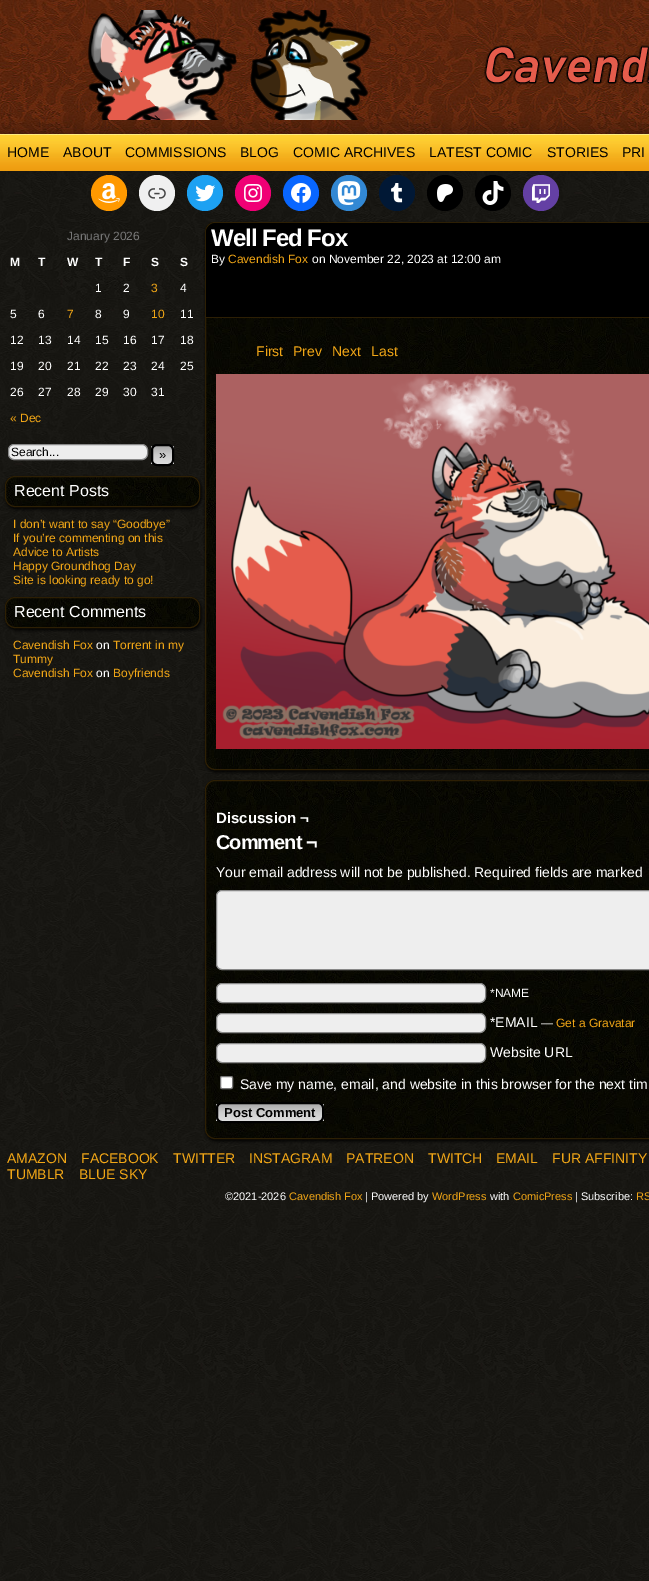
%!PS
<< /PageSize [649 1581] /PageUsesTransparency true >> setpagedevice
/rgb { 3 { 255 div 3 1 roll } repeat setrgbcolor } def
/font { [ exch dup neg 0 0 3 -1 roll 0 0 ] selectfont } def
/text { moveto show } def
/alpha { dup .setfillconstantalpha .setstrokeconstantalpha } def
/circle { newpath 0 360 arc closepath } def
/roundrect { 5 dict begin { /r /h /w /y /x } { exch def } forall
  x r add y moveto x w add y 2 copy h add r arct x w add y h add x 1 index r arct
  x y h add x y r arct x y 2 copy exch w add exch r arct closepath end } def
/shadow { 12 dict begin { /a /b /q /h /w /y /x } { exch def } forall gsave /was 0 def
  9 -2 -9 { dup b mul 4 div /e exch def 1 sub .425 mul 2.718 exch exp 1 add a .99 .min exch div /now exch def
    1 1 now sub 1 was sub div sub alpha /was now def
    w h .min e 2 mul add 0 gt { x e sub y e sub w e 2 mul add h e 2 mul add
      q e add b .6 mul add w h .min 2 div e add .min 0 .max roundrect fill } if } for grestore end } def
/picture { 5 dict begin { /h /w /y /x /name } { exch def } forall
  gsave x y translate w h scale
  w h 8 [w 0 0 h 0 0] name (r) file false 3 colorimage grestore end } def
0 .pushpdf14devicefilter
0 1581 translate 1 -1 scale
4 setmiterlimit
255 255 255 rgb
0 0 649 1581 rectfill
(img_01.rgb) 0 171 649 1410 picture
(img_02.rgb) 0 0 649 171 picture
(img_03.rgb) 88 10 561 110 picture
255 153 0 rgb
109 193 18 circle fill
(img_04.rgb) 98 183 22 20 picture
240 240 240 rgb
157 193 18 circle fill
(img_05.rgb) 148 188 18 11 picture
29 161 242 rgb
205 193 18 circle fill
(img_06.rgb) 195 185 20 17 picture
240 0 117 rgb
253 193 18 circle fill
(img_07.rgb) 244 184 18 18 picture
8 102 255 rgb
301 193 18 circle fill
(img_08.rgb) 291 183 20 20 picture
50 136 212 rgb
349 193 18 circle fill
(img_09.rgb) 337 181 24 24 picture
1 24 53 rgb
397 193 18 circle fill
(img_10.rgb) 391 183 12 20 picture
0 0 0 rgb
445 193 18 circle fill
(img_11.rgb) 437 184 16 18 picture
493 193 18 circle fill
(img_12.rgb) 482 181 22 24 picture
100 64 164 rgb
541 193 18 circle fill
(img_13.rgb) 532 184 18 19 picture
238 238 238 rgb
8.5 444.5 139 15 5.5 roundrect gsave fill grestore
136 136 136 rgb
stroke
gsave
151 444 23 22 6 roundrect clip newpath
gsave 151 446 moveto 23 0 rlineto 0 18 rlineto -23 0 rlineto closepath clip newpath
<< /ShadingType 2 /ColorSpace /DeviceRGB /Coords [163 446 163 464] /Extend [true true] /Function << /FunctionType 3 /Domain [0 1] /Functions [<< /FunctionType 2 /Domain [0 1] /C0 [0.667 0.667 0.667] /C1 [0.8 0.8 0.8] /N 1 >> << /FunctionType 2 /Domain [0 1] /C0 [0.8 0.8 0.8] /C1 [0.867 0.867 0.867] /N 1 >>] /Bounds [0.5] /Encode [0 1 0 1] >> >> shfill grestore
grestore
0 0 0 rgb
2 setlinewidth
152 445 21 20 5 roundrect stroke
6 478 195 31 10 1.5 1 shadow
(img_14.rgb) 5 476 195 31 picture
45 31 4 rgb
1 setlinewidth
5.5 476.5 194 30 9.5 roundrect stroke
0 0 0 rgb
6 599 195 31 10 1.5 1 shadow
(img_15.rgb) 5 597 195 31 picture
45 31 4 rgb
5.5 597.5 194 30 9.5 roundrect stroke
gsave
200 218 moveto 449 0 rlineto 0 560 rlineto -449 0 rlineto closepath 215 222 moveto 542 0 rlineto 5.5 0 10 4.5 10 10 rcurveto 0 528 rlineto 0 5.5 -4.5 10 -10 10 rcurveto -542 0 rlineto -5.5 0 -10 -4.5 -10 -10 rcurveto 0 -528 rlineto 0 -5.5 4.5 -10 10 -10 rcurveto closepath eoclip newpath
0 0 0 rgb
206 224 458 548 10 1.5 1 shadow
grestore
(img_16.rgb) 205 222 444 548 picture
205.5 222.5 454 547 9.5 roundrect stroke
0 0 0 rgb
216 223 moveto 433 0 rlineto 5.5 0 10 4.5 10 10 rcurveto 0 85 rlineto -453 0 rlineto 0 -85 rlineto 0 -5.5 4.5 -10 10 -10 rcurveto closepath fill
45 31 4 rgb
206 317 443 1 rectfill
(img_17.rgb) 216 374 433 375 picture
gsave
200 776 moveto 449 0 rlineto 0 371 rlineto -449 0 rlineto closepath 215 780 moveto 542 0 rlineto 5.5 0 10 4.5 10 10 rcurveto 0 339 rlineto 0 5.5 -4.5 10 -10 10 rcurveto -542 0 rlineto -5.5 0 -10 -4.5 -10 -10 rcurveto 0 -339 rlineto 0 -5.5 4.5 -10 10 -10 rcurveto closepath eoclip newpath
0 0 0 rgb
206 782 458 359 10 1.5 1 shadow
grestore
(img_18.rgb) 205 780 444 359 picture
205.5 780.5 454 358 9.5 roundrect stroke
238 238 238 rgb
216.5 890.5 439 79 5.5 roundrect gsave fill grestore
136 136 136 rgb
stroke
238 238 238 rgb
216.5 983.5 269 19 5.5 roundrect gsave fill grestore
136 136 136 rgb
stroke
238 238 238 rgb
216.5 1013.5 269 19 5.5 roundrect gsave fill grestore
136 136 136 rgb
stroke
238 238 238 rgb
216.5 1043.5 269 19 5.5 roundrect gsave fill grestore
136 136 136 rgb
stroke
255 255 255 rgb
220.5 1076.5 12 12 1.5 roundrect gsave fill grestore
118 118 118 rgb
stroke
gsave
216 1102 108 21 6 roundrect clip newpath
gsave 216 1104 moveto 108 0 rlineto 0 17 rlineto -108 0 rlineto closepath clip newpath
<< /ShadingType 2 /ColorSpace /DeviceRGB /Coords [270 1104 270 1121] /Extend [true true] /Function << /FunctionType 3 /Domain [0 1] /Functions [<< /FunctionType 2 /Domain [0 1] /C0 [0.667 0.667 0.667] /C1 [0.8 0.8 0.8] /N 1 >> << /FunctionType 2 /Domain [0 1] /C0 [0.8 0.8 0.8] /C1 [0.867 0.867 0.867] /N 1 >>] /Bounds [0.5] /Encode [0 1 0 1] >> >> shfill grestore
grestore
0 0 0 rgb
2 setlinewidth
217 1103 106 19 5 roundrect stroke
/LiberationSans-Regular 14 font
(HOME) 7 157 text
(ABOUT) 63 157 text
(COMMISSIONS) 125 157 text
(BLOG) 240 157 text
(COMIC ARCHIVES) 293 157 text
(LATEST COMIC) 429 157 text
(STORIES) 547 157 text
(PRI) 622 157 text
/LiberationSans-Regular 12 font
119 119 119 rgb
(January 2026) 67 240 text
/LiberationSans-Bold 12 font
255 255 255 rgb
(M) 10 266 text
(T) 38 266 text
(W) 67 266 text
(T) 95 266 text
(F) 123 266 text
(S) 151 266 text
(S) 180 266 text
/LiberationSans-Regular 12 font
(1) 95 292 text
(2) 123 292 text
241 166 22 rgb
(3) 151 292 text
255 255 255 rgb
(4) 180 292 text
(5) 10 318 text
(6) 38 318 text
241 166 22 rgb
(7) 67 318 text
255 255 255 rgb
(8) 95 318 text
(9) 123 318 text
241 166 22 rgb
(10) 151 318 text
255 255 255 rgb
(11) 180 318 text
(12) 10 344 text
(13) 38 344 text
(14) 67 344 text
(15) 95 344 text
(16) 123 344 text
(17) 151 344 text
(18) 180 344 text
(19) 10 370 text
(20) 38 370 text
(21) 67 370 text
(22) 95 370 text
(23) 123 370 text
(24) 151 370 text
(25) 180 370 text
(26) 10 396 text
(27) 38 396 text
(28) 67 396 text
(29) 95 396 text
(30) 123 396 text
(31) 151 396 text
241 166 22 rgb
(« Dec) 10 422 text
0 0 0 rgb
(Search...) 11 456 text
/LiberationSans-Regular 13 font
(») 159 459 text
/LiberationSans-Regular 16 font
255 255 255 rgb
(Recent Posts) 14 496 text
/LiberationSans-Regular 12 font
241 166 22 rgb
(I don’t want to say “Goodbye”) 13 528 text
(If you’re commenting on this) 13 542 text
(Advice to Artists) 13 556 text
(Happy Groundhog Day) 13 570 text
(Site is looking ready to go!) 13 584 text
/LiberationSans-Regular 16 font
255 255 255 rgb
(Recent Comments) 14 617 text
/LiberationSans-Regular 12 font
241 166 22 rgb
(Cavendish Fox) 13 649 text
255 255 255 rgb
(on) 96 649 text
241 166 22 rgb
(Torrent in my) 113 649 text
(Tummy) 13 663 text
(Cavendish Fox) 13 677 text
255 255 255 rgb
(on) 96 677 text
241 166 22 rgb
(Boyfriends) 113 677 text
/LiberationSans-Bold 24 font
255 255 255 rgb
211 246 moveto -1 0 (Well Fed Fox) ashow
/LiberationSans-Regular 12 font
(By) 211 263 text
241 166 22 rgb
(Cavendish Fox) 228 263 text
255 255 255 rgb
(on November 22, 2023 at 12:00 am) 312 263 text
/LiberationSans-Regular 14 font
241 166 22 rgb
(First) 256 356 text
(Prev) 293 356 text
(Next) 332 356 text
(Last) 371 356 text
/LiberationSans-Bold 15 font
255 255 255 rgb
(Discussion ¬) 216 823 text
/LiberationSans-Bold 20 font
216 849 moveto -1 0 (Comment ¬) ashow
/LiberationSans-Regular 14 font
(Your email address will not be published. Required fields are marked) 216 877 text
/LiberationSans-Regular 12 font
(*NAME) 490 997 text
/LiberationSans-Regular 14 font
(*EMAIL) 490 1027 text
/LiberationSans-Regular 12 font
(—) 541 1027 text
241 166 22 rgb
(Get a Gravatar) 556 1027 text
/LiberationSans-Regular 14 font
255 255 255 rgb
(Website URL) 490 1057 text
(Save my name, email, and website in this browser for the next tim) 240 1089 text
/LiberationSans-Bold 13 font
0 0 0 rgb
(Post Comment) 224 1117 text
/LiberationSans-Regular 14 font
241 166 22 rgb
(AMAZON) 7 1163 text
(FACEBOOK) 81 1163 text
(TWITTER) 173 1163 text
(INSTAGRAM) 249 1163 text
(PATREON) 346 1163 text
(TWITCH) 428 1163 text
(EMAIL) 496 1163 text
(FUR AFFINITY) 552 1163 text
(TUMBLR) 7 1179 text
(BLUE SKY) 79 1179 text
/LiberationSans-Regular 11 font
255 255 255 rgb
(©2021-2026) 225 1200 text
241 166 22 rgb
(Cavendish Fox) 289 1200 text
255 255 255 rgb
(| Powered by) 365 1200 text
241 166 22 rgb
(WordPress) 432 1200 text
255 255 255 rgb
(with) 490 1200 text
241 166 22 rgb
(ComicPress) 513 1200 text
255 255 255 rgb
(| Subscribe:) 575 1200 text
241 166 22 rgb
(RS) 636 1200 text
.poppdf14devicefilter showpage
